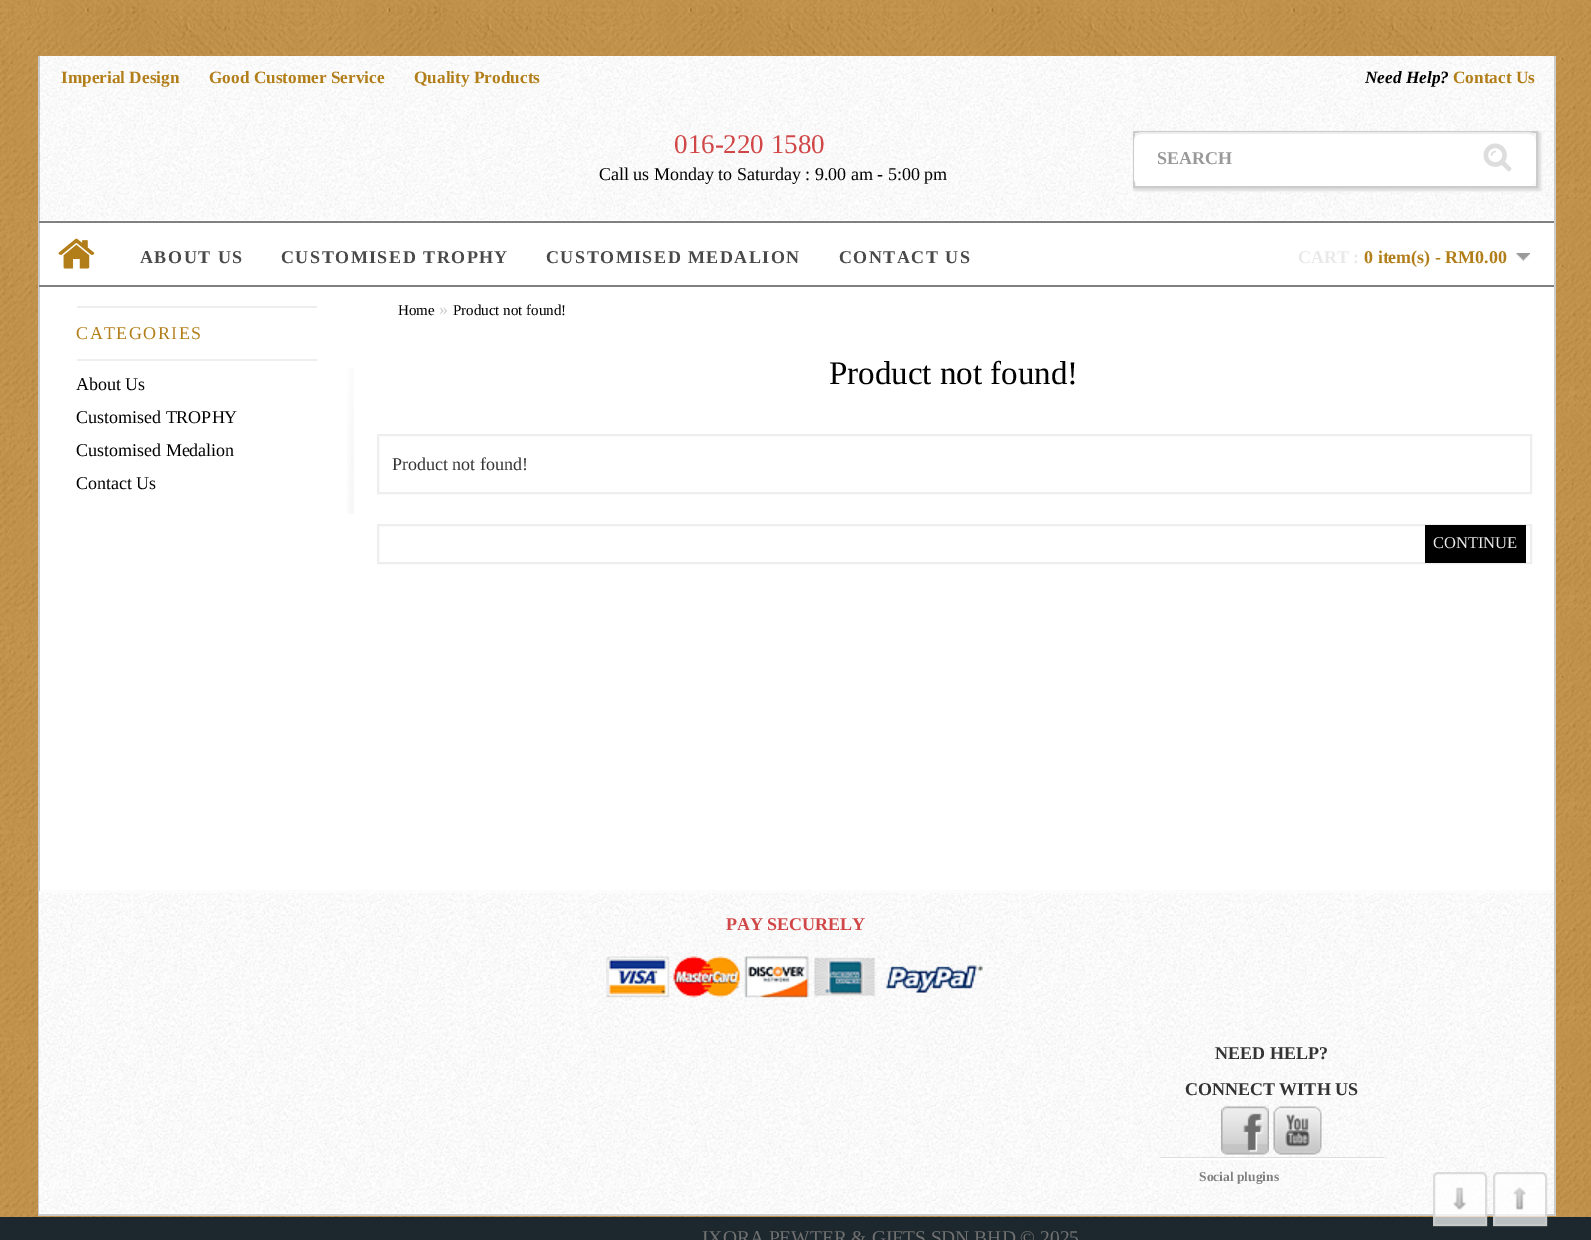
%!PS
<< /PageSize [1591 1240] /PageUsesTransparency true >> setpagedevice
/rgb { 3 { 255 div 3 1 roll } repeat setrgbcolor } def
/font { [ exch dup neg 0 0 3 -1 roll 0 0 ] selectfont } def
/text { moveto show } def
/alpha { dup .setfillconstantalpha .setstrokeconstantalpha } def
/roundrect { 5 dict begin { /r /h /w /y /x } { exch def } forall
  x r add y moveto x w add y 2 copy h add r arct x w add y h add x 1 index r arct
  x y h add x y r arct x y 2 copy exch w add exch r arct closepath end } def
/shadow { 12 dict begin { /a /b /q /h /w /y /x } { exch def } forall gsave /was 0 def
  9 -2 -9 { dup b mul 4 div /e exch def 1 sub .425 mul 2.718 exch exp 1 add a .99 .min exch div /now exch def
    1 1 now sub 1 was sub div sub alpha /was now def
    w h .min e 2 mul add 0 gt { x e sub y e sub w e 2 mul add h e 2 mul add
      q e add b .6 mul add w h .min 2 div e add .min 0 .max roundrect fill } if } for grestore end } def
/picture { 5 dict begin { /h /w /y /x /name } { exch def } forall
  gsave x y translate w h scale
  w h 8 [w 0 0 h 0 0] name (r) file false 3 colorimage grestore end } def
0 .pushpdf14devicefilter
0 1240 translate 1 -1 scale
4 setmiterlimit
194 126 25 rgb
0 0 1591 1240 rectfill
(img_01.rgb) 0 0 1591 1217 picture
255 255 255 rgb
40 56 1514 165 rectfill
204 204 204 rgb
1554 56 2 1159 rectfill
38 56 2 165 rectfill
(img_02.rgb) 39 55 1515 165 picture
gsave
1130 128 moveto 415 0 rlineto 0 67 rlineto -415 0 rlineto closepath 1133 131 moveto 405 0 rlineto 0 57 rlineto -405 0 rlineto closepath eoclip newpath
221 221 221 rgb
1134 132 407 59 0 1 1 shadow
grestore
2 setlinewidth
1134 132 403 55 rectstroke
255 255 255 rgb
1134 132 402 54 8 roundrect fill
0.07 alpha
0 0 0 rgb
1142 134 moveto 386 0 rlineto 5 0 8 3 8 7 rcurveto 0 -1 rlineto 0 -4 -4 -8 -8 -8 rcurveto -386 0 rlineto -4 0 -8 4 -8 8 rcurveto 0 1 rlineto 0 -4 3 -7 8 -7 rcurveto closepath fill
1 alpha
(img_03.rgb) 1483 143 29 29 picture
255 255 255 rgb
40 223 1514 668 rectfill
204 204 204 rgb
38 1214 1518 2 rectfill
38 221 2 994 rectfill
128 128 128 rgb
39 221 1515 2 rectfill
39 285 1515 2 rectfill
(img_04.rgb) 58 238 37 31 picture
(img_05.rgb) 1516 253 14 8 picture
(img_06.rgb) 347 368 7 146 picture
238 238 238 rgb
77 306 240 2 rectfill
77 359 240 2 rectfill
378 435 1153 58 rectstroke
378 525 1153 38 rectstroke
0 0 0 rgb
1425 525 101 38 rectfill
255 255 255 rgb
39 893 1515 321 rectfill
(img_07.rgb) 39 890 1515 113 picture
252 252 252 rgb
39 891 1515 2 rectfill
(img_08.rgb) 606 956 377 42 picture
(img_09.rgb) 39 1003 1515 210 picture
(img_10.rgb) 1221 1106 48 49 picture
(img_11.rgb) 1273 1106 49 49 picture
221 221 221 rgb
1160 1157 225 1 rectfill
255 255 255 rgb
1160 1158 225 2 rectfill
29 40 46 rgb
0 1217 1591 23 rectfill
0.7 alpha
255 255 255 rgb
1438 1172 moveto 44 0 rlineto 3 0 5 2 5 5 rcurveto 0 49 rlineto -54 0 rlineto 0 -49 rlineto 0 -3 2 -5 5 -5 rcurveto closepath fill
1 alpha
(img_12.rgb) 1453 1187 14 23 picture
0.7 alpha
204 204 204 rgb
1438 1173 moveto 44 0 rlineto 2 0 4 2 4 4 rcurveto 0 48 rlineto -52 0 rlineto 0 -48 rlineto 0 -2 2 -4 4 -4 rcurveto closepath stroke
255 255 255 rgb
1498 1172 moveto 44 0 rlineto 3 0 5 2 5 5 rcurveto 0 49 rlineto -54 0 rlineto 0 -49 rlineto 0 -3 2 -5 5 -5 rcurveto closepath fill
1 alpha
(img_13.rgb) 1513 1187 13 23 picture
0.7 alpha
204 204 204 rgb
1498 1173 moveto 44 0 rlineto 2 0 4 2 4 4 rcurveto 0 48 rlineto -52 0 rlineto 0 -48 rlineto 0 -2 2 -4 4 -4 rcurveto closepath stroke
/LiberationSerif-Bold 17.25 font
1 alpha
178 126 25 rgb
(Imperial Design) 61 83 text
(Good Customer Service) 209 83 text
(Quality Products) 414 83 text
/LiberationSerif-BoldItalic 17.25 font
0 0 0 rgb
(Need Help?) 1365 83 text
/LiberationSerif-Bold 17.25 font
178 126 25 rgb
(Contact Us) 1453 83 text
/LiberationSerif-Regular 27 font
209 71 71 rgb
(016-220 1580) 674 153 text
/LiberationSerif-Regular 18 font
0 0 0 rgb
(Call us Monday to Saturday : 9.00 am - 5:00 pm) 599 180 text
/LiberationSerif-Bold 18 font
153 153 153 rgb
(SEARCH) 1157 164 text
74 73 74 rgb
140 263 moveto 1.5 0 (ABOUT US) ashow
281 263 moveto 1.5 0 (CUSTOMISED TROPHY) ashow
546 263 moveto 1.5 0 (CUSTOMISED MEDALION) ashow
839 263 moveto 1.5 0 (CONTACT US) ashow
233 233 233 rgb
(CART :) 1298 263 text
178 126 25 rgb
(0 item\(s\) - RM0.00) 1364 263 text
/LiberationSerif-Regular 18 font
76 339 moveto 1.5 0 (CATEGORIES) ashow
0 0 0 rgb
(About Us) 76 390 text
(Customised TROPHY) 76 423 text
(Customised Medalion) 76 456 text
(Contact Us) 76 489 text
/LiberationSerif-Regular 15 font
(Home) 398 315 text
/LiberationSerif-Regular 18 font
204 204 204 rgb
(») 439 315 text
/LiberationSerif-Regular 15 font
0 0 0 rgb
(Product not found!) 453 315 text
/LiberationSerif-Regular 33 font
(Product not found!) 829 384 text
/LiberationSerif-Regular 18 font
51 51 51 rgb
(Product not found!) 392 470 text
/LiberationSerif-Regular 16.5 font
233 233 233 rgb
(CONTINUE) 1433 548 text
/LiberationSerif-Bold 18 font
209 71 71 rgb
(PAY SECURELY) 726 930 text
51 51 51 rgb
(NEED HELP?) 1215 1059 text
(CONNECT WITH US) 1185 1095 text
/LiberationSerif-Bold 13.5 font
128 128 128 rgb
(Social plugins) 1199 1181 text
/LiberationSerif-Regular 19.5 font
112 112 112 rgb
(IXORA PEWTER & GIFTS SDN BHD © 2025) 702 1244 text
.poppdf14devicefilter showpage
